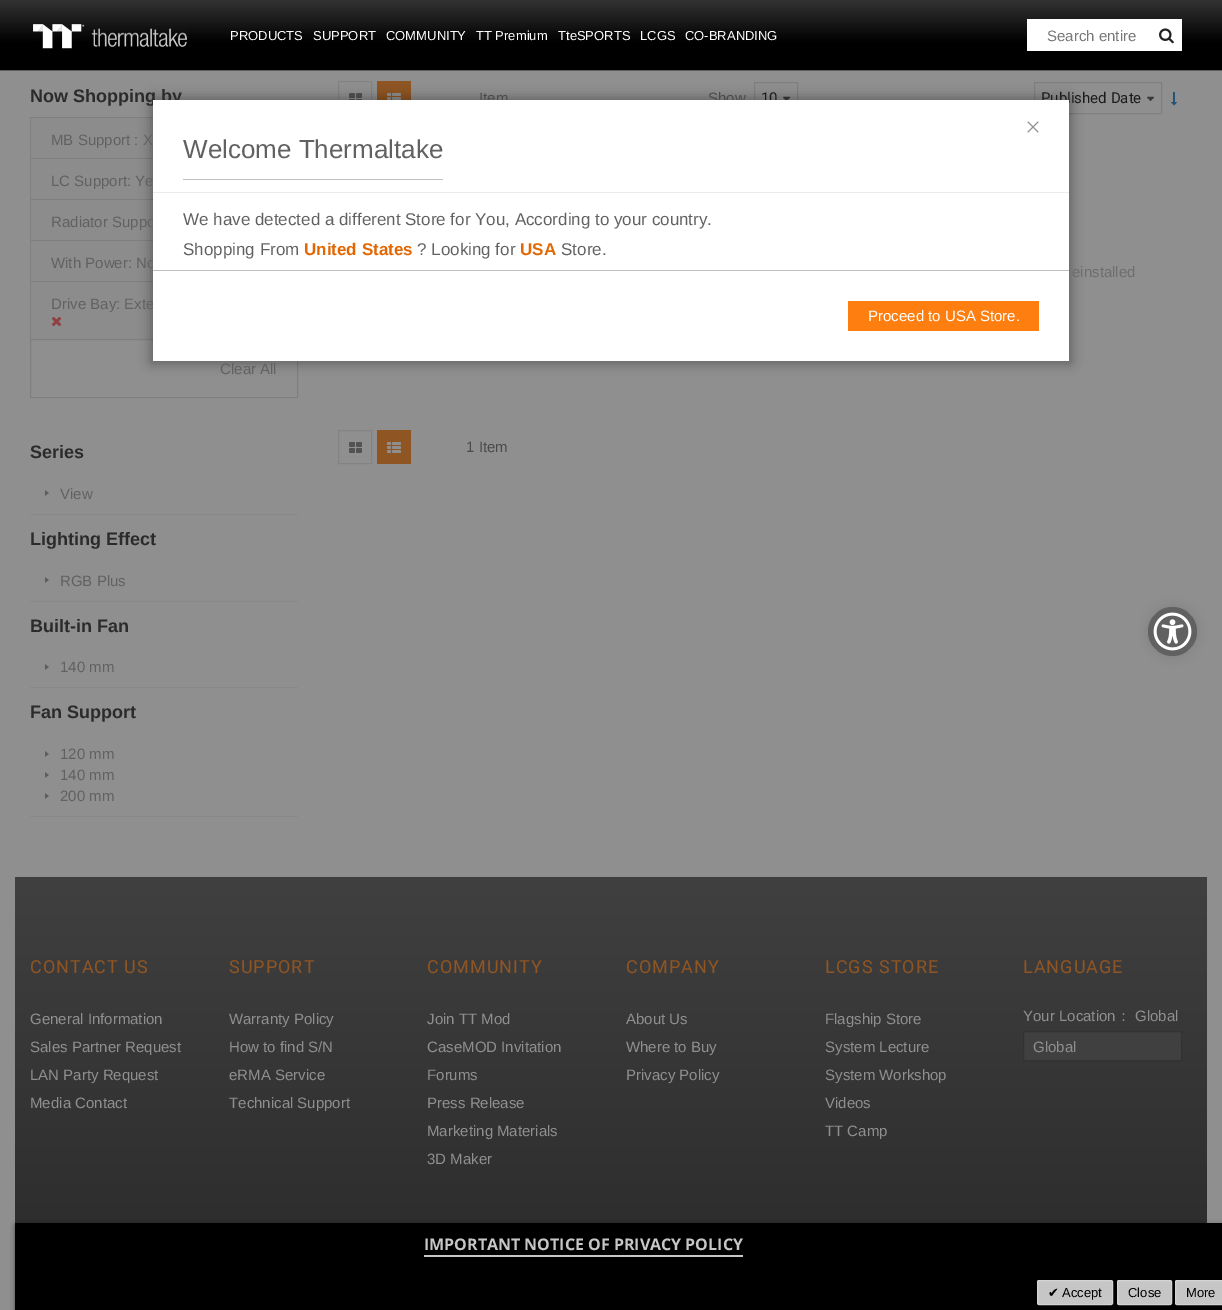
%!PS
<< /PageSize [1222 1310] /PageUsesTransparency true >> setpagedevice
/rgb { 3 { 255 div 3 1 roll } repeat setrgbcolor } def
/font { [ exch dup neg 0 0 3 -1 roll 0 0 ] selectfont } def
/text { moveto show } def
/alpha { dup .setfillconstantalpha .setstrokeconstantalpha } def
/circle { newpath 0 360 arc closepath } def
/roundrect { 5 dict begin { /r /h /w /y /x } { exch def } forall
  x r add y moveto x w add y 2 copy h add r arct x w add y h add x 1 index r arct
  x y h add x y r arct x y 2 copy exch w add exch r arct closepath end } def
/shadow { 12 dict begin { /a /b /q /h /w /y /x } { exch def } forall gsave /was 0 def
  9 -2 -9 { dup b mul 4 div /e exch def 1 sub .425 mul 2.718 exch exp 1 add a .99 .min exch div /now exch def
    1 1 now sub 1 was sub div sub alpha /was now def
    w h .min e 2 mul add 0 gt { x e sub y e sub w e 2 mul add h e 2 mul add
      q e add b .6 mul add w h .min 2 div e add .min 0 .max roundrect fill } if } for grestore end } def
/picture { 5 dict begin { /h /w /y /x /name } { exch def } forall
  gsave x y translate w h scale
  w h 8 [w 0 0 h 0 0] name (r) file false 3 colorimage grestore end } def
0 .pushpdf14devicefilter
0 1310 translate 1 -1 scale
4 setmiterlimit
143 143 143 rgb
0 0 1222 1310 rectfill
gsave 0 0 moveto 1222 0 rlineto 0 70 rlineto -1222 0 rlineto closepath clip newpath
<< /ShadingType 2 /ColorSpace /DeviceRGB /Coords [611 0 611 70] /Extend [true true] /Function << /FunctionType 3 /Domain [0 1] /Functions [<< /FunctionType 2 /Domain [0 1] /C0 [0.2 0.2 0.2] /C1 [0 0 0] /N 1 >> << /FunctionType 2 /Domain [0 1] /C0 [0 0 0] /C1 [0 0 0] /N 1 >>] /Bounds [0.61] /Encode [0 1 0 1] >> >> shfill grestore
95 95 95 rgb
0 70 1222 1 rectfill
(img_01.rgb) 33 24 154 25 picture
255 255 255 rgb
1027 19 155 32 rectfill
(img_02.rgb) 1159 28 15 16 picture
127 127 127 rgb
30 117 123 1 rectfill
30 117 1 222 rectfill
140 140 140 rgb
31 118 122 40 rectfill
127 127 127 rgb
31 158 122 1 rectfill
140 140 140 rgb
31 159 122 40 rectfill
127 127 127 rgb
31 199 122 1 rectfill
140 140 140 rgb
31 200 122 40 rectfill
127 127 127 rgb
31 240 122 1 rectfill
140 140 140 rgb
31 241 122 40 rectfill
127 127 127 rgb
31 281 122 1 rectfill
140 140 140 rgb
31 282 122 57 rectfill
(img_03.rgb) 51 316 11 11 picture
127 127 127 rgb
30.5 339.5 267 58 rectstroke
136 136 136 rgb
30 514 268 1 rectfill
(img_04.rgb) 45 490 4 6 picture
30 601 268 1 rectfill
(img_04.rgb) 45 577 4 6 picture
30 687 268 1 rectfill
(img_04.rgb) 45 664 4 6 picture
30 816 268 1 rectfill
(img_04.rgb) 45 751 4 6 picture
(img_04.rgb) 45 772 4 6 picture
(img_04.rgb) 45 793 4 6 picture
131 131 131 rgb
338.5 81.5 33 33 rectstroke
(img_05.rgb) 349 93 13 7 picture
143 85 35 rgb
377 81 34 19 rectfill
(img_06.rgb) 387 93 14 7 picture
(img_07.rgb) 783 96 8 4 picture
127 127 127 rgb
754.5 82.5 43 31 rectstroke
(img_08.rgb) 1147 96 8 5 picture
1034.5 82.5 127 31 rectstroke
(img_09.rgb) 1171 92 6 14 picture
131 131 131 rgb
338.5 430.5 33 33 rectstroke
(img_10.rgb) 349 442 13 11 picture
143 85 35 rgb
377 430 34 34 rectfill
(img_11.rgb) 387 442 14 11 picture
gsave 15 877 moveto 1192 0 rlineto 0 346 rlineto -1192 0 rlineto closepath clip newpath
<< /ShadingType 2 /ColorSpace /DeviceRGB /Coords [611 877 611 1235] /Extend [true true] /Function << /FunctionType 2 /Domain [0 1] /C0 [0.251 0.251 0.251] /C1 [0.176 0.176 0.176] /N 1 >> >> shfill grestore
64 64 64 rgb
1023.5 1031.5 moveto 158 0 rlineto 0 29 rlineto -158 0 rlineto closepath gsave fill grestore
50 50 50 rgb
stroke
0 0 0 rgb
15 1225 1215 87 0 2.5 0.47 shadow
15 1223 1207 87 rectfill
198 198 198 rgb
424 1255 319 2 rectfill
1037.5 1280.5 75 24 1.5 roundrect gsave fill grestore
212 212 212 rgb
stroke
198 198 198 rgb
1117.5 1280.5 54 24 1.5 roundrect gsave fill grestore
212 212 212 rgb
stroke
198 198 198 rgb
1175.5 1280.5 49 24 1.5 roundrect gsave fill grestore
212 212 212 rgb
stroke
0 0 0 rgb
151 98 920 265 0 6 0.35 shadow
1148 607 49 49 24.5 5 0.1 shadow
97 97 97 rgb
1172.5 631.5 24.5 circle fill
(img_13.rgb) 1153 612 39 39 picture
/LiberationSans-Regular 13 font
255 255 255 rgb
(PRODUCTS) 230 40 text
(SUPPORT) 313 40 text
(COMMUNITY) 386 40 text
(TT Premium) 476 40 text
(TteSPORTS) 558 40 text
(LCGS) 640 40 text
(CO-BRANDING) 685 40 text
/LiberationSans-Regular 15 font
119 119 119 rgb
(Search entire) 1047 41 text
/LiberationSans-Bold 18 font
43 43 43 rgb
(Now Shopping by) 30 102 text
/LiberationSans-Regular 15 font
97 97 97 rgb
(MB Support : X) 51 145 text
(LC Support: Ye) 51 186 text
(Radiator Suppo) 51 227 text
(With Power: No) 51 268 text
(Drive Bay: Exte) 51 309 text
(Clear All) 220 374 text
/LiberationSans-Bold 18 font
43 43 43 rgb
(Series) 30 458 text
/LiberationSans-Regular 15 font
97 97 97 rgb
(View) 60 499 text
/LiberationSans-Bold 18 font
43 43 43 rgb
(Lighting Effect) 30 545 text
/LiberationSans-Regular 15 font
97 97 97 rgb
(RGB Plus) 60 586 text
/LiberationSans-Bold 18 font
43 43 43 rgb
(Built-in Fan) 30 632 text
/LiberationSans-Regular 15 font
97 97 97 rgb
(140 mm) 60 672 text
/LiberationSans-Bold 18 font
43 43 43 rgb
(Fan Support) 30 718 text
/LiberationSans-Regular 15 font
97 97 97 rgb
(120 mm) 60 759 text
(140 mm) 60 780 text
(200 mm) 60 801 text
74 74 74 rgb
(Item) 479 103 text
(Show) 708 103 text
gsave
760 83 17 30 rectclip
/Roboto-Regular 15 font
28 28 28 rgb
(10) 761 103 text
grestore
/Roboto-Regular 15 font
28 28 28 rgb
(Published Date) 1041 103 text
/LiberationSans-Regular 15 font
109 109 109 rgb
(einstalled) 1072 277 text
74 74 74 rgb
(1 Item) 466 452 text
/Roboto-Regular 18 font
143 85 35 rgb
30 973 moveto 1 0 (CONTACT US) ashow
/LiberationSans-Regular 15 font
143 143 143 rgb
(General Information) 30 1024 text
(Sales Partner Request) 30 1052 text
(LAN Party Request) 30 1080 text
(Media Contact) 30 1108 text
/Roboto-Regular 18 font
143 85 35 rgb
229 973 moveto 1 0 (SUPPORT) ashow
/LiberationSans-Regular 15 font
143 143 143 rgb
(Warranty Policy) 229 1024 text
(How to find S/N) 229 1052 text
(eRMA Service) 229 1080 text
(Technical Support) 229 1108 text
/Roboto-Regular 18 font
143 85 35 rgb
427 973 moveto 1 0 (COMMUNITY) ashow
/LiberationSans-Regular 15 font
143 143 143 rgb
(Join TT Mod) 427 1024 text
(CaseMOD Invitation) 427 1052 text
(Forums) 427 1080 text
(Press Release) 427 1108 text
(Marketing Materials) 427 1136 text
(3D Maker) 427 1164 text
/Roboto-Regular 18 font
143 85 35 rgb
626 973 moveto 1 0 (COMPANY) ashow
/LiberationSans-Regular 15 font
143 143 143 rgb
(About Us) 626 1024 text
(Where to Buy) 626 1052 text
(Privacy Policy) 626 1080 text
/Roboto-Regular 18 font
143 85 35 rgb
825 973 moveto 1 0 (LCGS STORE) ashow
/LiberationSans-Regular 15 font
143 143 143 rgb
(Flagship Store) 825 1024 text
(System Lecture) 825 1052 text
(System Workshop) 825 1080 text
(Videos) 825 1108 text
(TT Camp) 825 1136 text
/Roboto-Regular 18 font
143 85 35 rgb
1023 973 moveto 1 0 (LANGUAGE) ashow
/LiberationSans-Regular 15 font
143 143 143 rgb
(Your Location) 1023 1021 text
/WenQuanYiZenHei-Medium 15 font
(：) 1116 1021 text
/LiberationSans-Regular 15 font
(Global) 1135 1021 text
(Global) 1033 1052 text
/OpenSans-Bold 16 font
198 198 198 rgb
(IMPORTANT NOTICE OF PRIVACY POLICY) 424 1250 text
/DejaVuSans-Regular 13 font
0 0 0 rgb
(✔) 1048 1297 text
/LiberationSans-Regular 13 font
(Accept) 1062 1297 text
(Close) 1128 1297 text
(More) 1186 1297 text
255 255 255 rgb
153 100 916 261 rectfill
233 236 239 rgb
153 192 916 1 rectfill
(img_12.rgb) 1027 121 12 12 picture
193 193 193 rgb
183 179 260 1 rectfill
/LiberationSans-Regular 26 font
97 97 97 rgb
(Welcome Thermaltake) 183 158 text
/LiberationSans-Regular 17 font
(We have detected a different Store for You, According to your country.) 183 225 text
(Shopping From) 183 255 text
/LiberationSans-Bold 17 font
226 103 3 rgb
(United States) 304 255 text
/LiberationSans-Regular 17 font
97 97 97 rgb
(? Looking for) 417 255 text
/LiberationSans-Bold 17 font
226 103 3 rgb
(USA) 520 255 text
/LiberationSans-Regular 17 font
97 97 97 rgb
(Store.) 561 255 text
193 193 193 rgb
153 270 916 1 rectfill
255 126 16 rgb
848 301 191 30 rectfill
/LiberationSans-Regular 15 font
255 255 255 rgb
(Proceed to USA Store.) 868 321 text
.poppdf14devicefilter showpage
